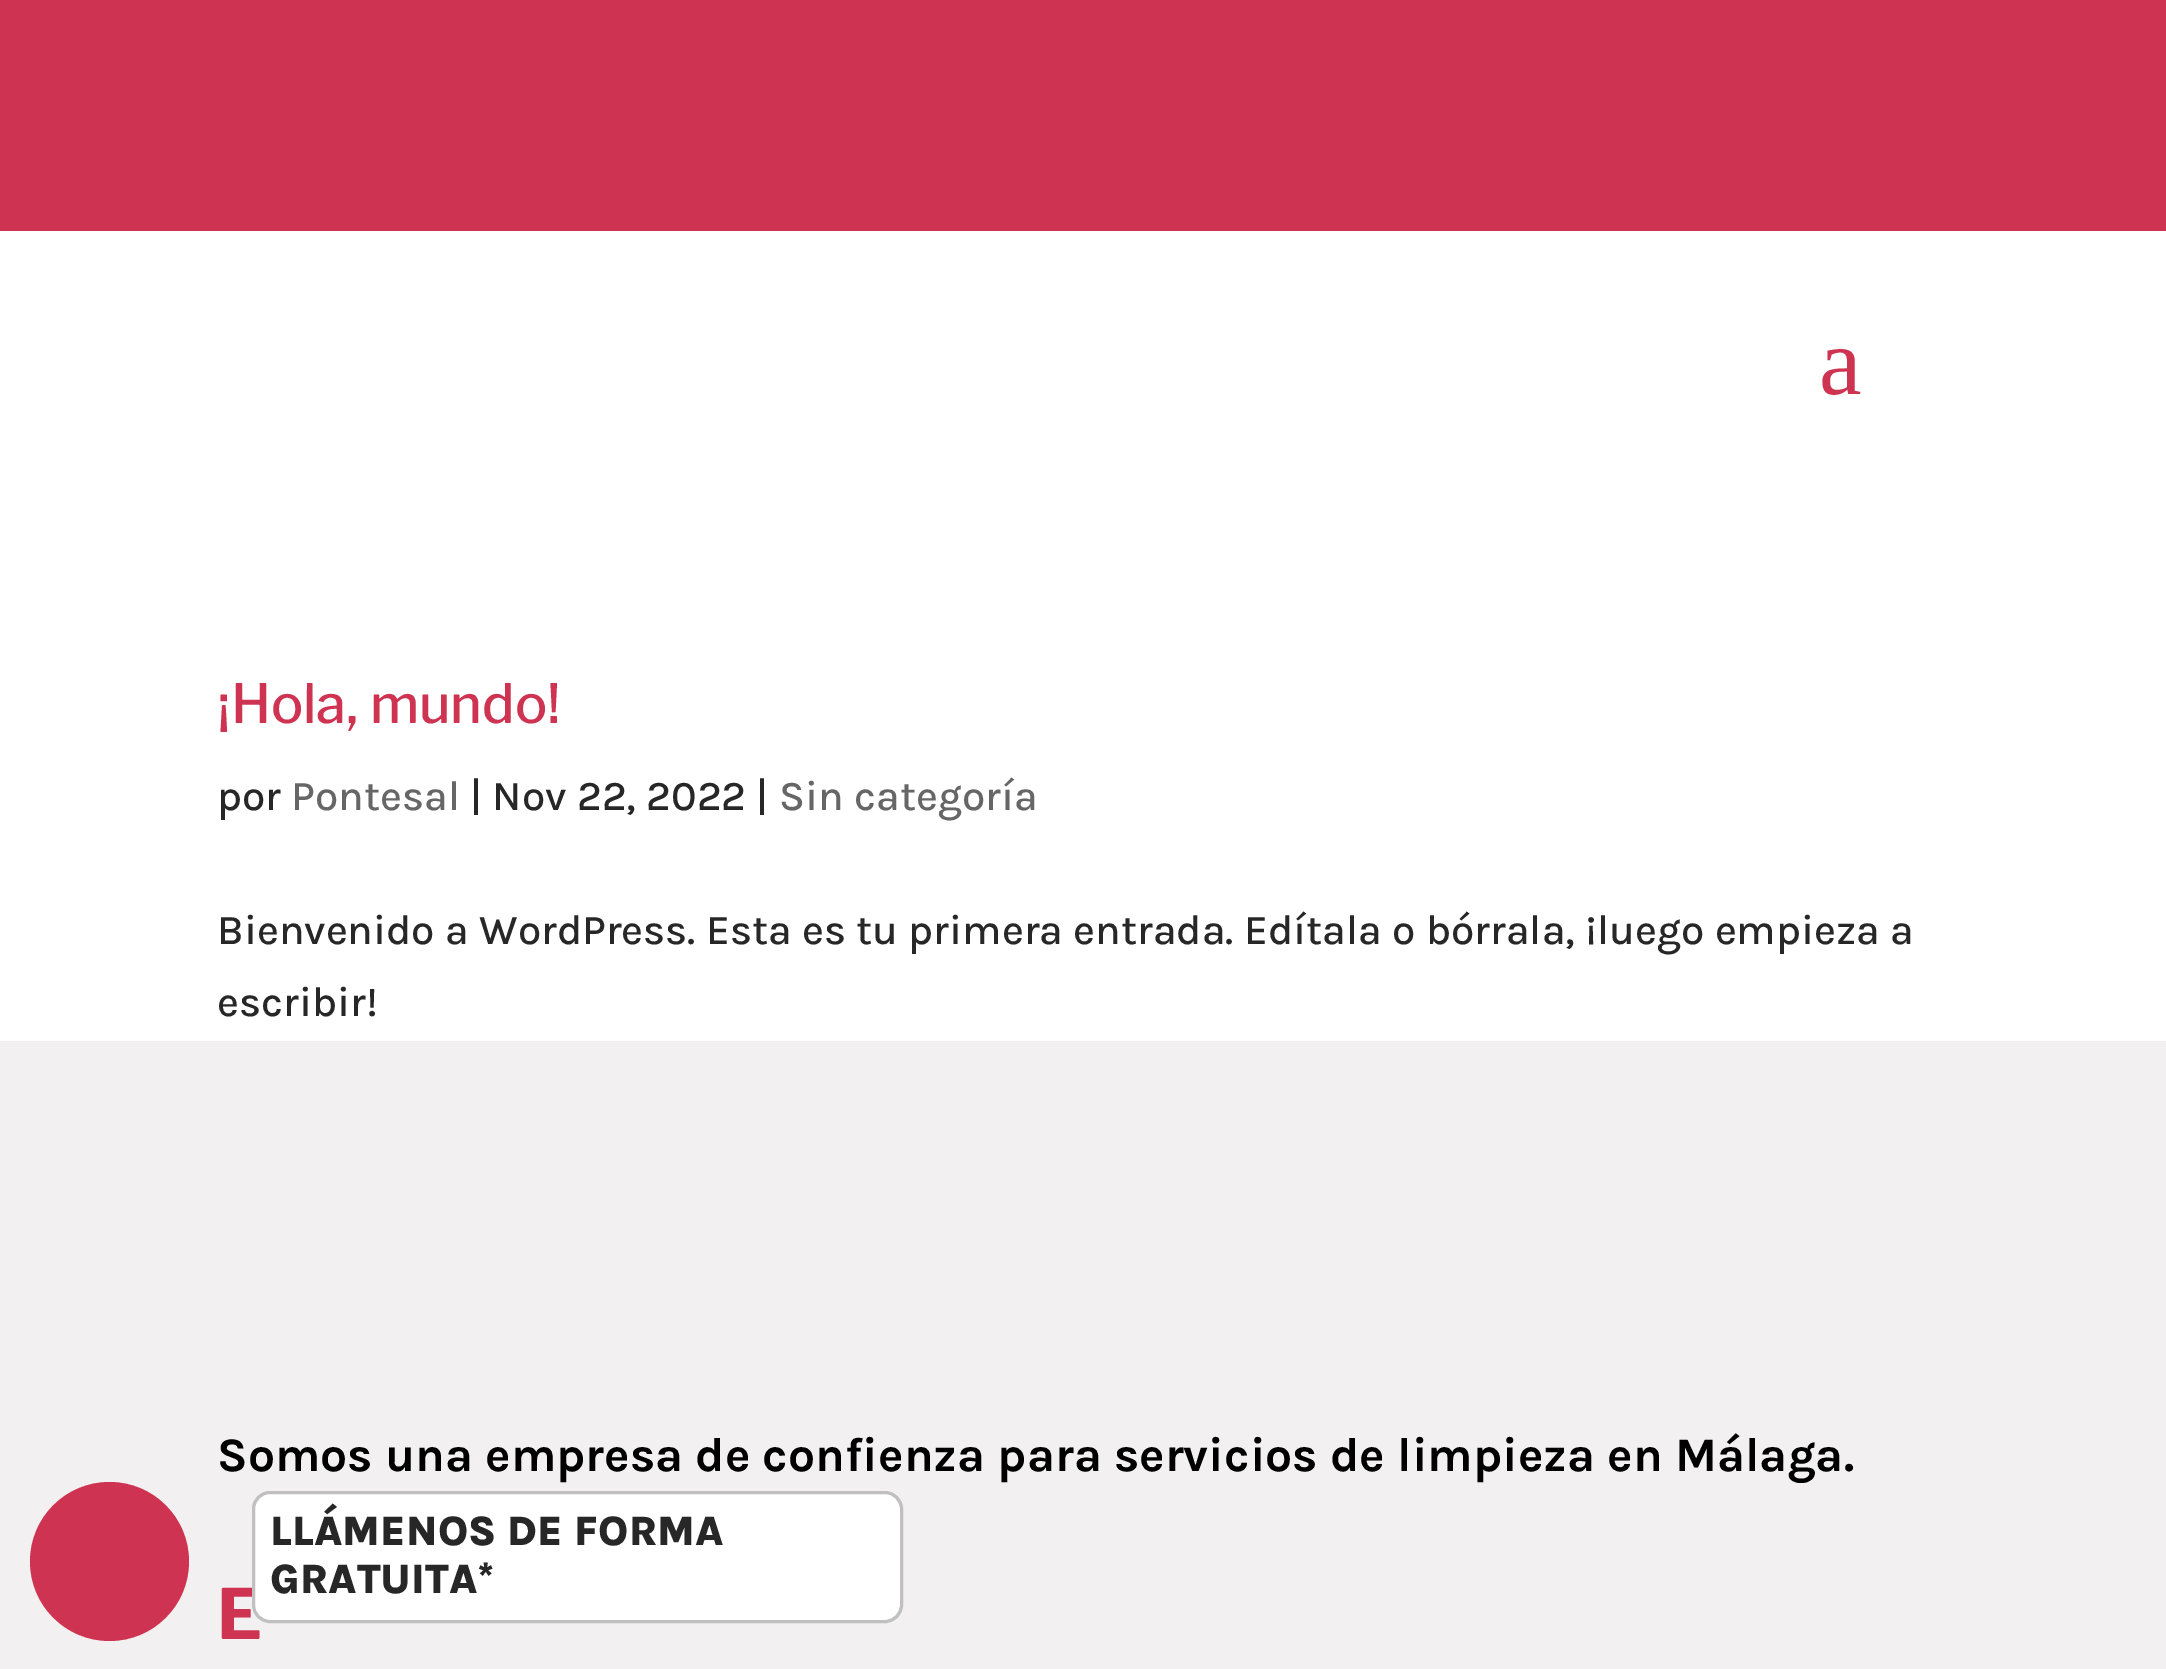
%!PS
<< /PageSize [2166 1669] >> setpagedevice
/rgb { 3 { 255 div 3 1 roll } repeat setrgbcolor } def
/font { [ exch dup neg 0 0 3 -1 roll 0 0 ] selectfont } def
/text { moveto show } def
/circle { newpath 0 360 arc closepath } def
/roundrect { 5 dict begin { /r /h /w /y /x } { exch def } forall
  x r add y moveto x w add y 2 copy h add r arct x w add y h add x 1 index r arct
  x y h add x y r arct x y 2 copy exch w add exch r arct closepath end } def
0 1669 translate 1 -1 scale
4 setmiterlimit
255 255 255 rgb
0 0 2166 1669 rectfill
242 240 240 rgb
0 1041 2166 628 rectfill
206 52 82 rgb
109.5 1561.5 79.5 circle fill
0 0 2166 231 rectfill
/LiberationSerif-Regular 96 font
(a) 1819 394 text
/LibreFranklin-Medium 54 font
(¡Hola, mundo!) 217 723 text
/Karla-Medium 42 font
39 39 39 rgb
(por) 217 810 text
102 102 102 rgb
(Pontesal) 291 810 text
39 39 39 rgb
(| Nov 22, 2022 |) 470 810 text
102 102 102 rgb
(Sin categoría) 779 810 text
39 39 39 rgb
(Bienvenido a WordPress. Esta es tu primera entrada. Edítala o bórrala, ¡luego empieza a) 217 944 text
(escribir!) 217 1016 text
/Karla-Bold 48 font
0 0 0 rgb
(Somos una empresa de confienza para servicios de limpieza en Málaga.) 217 1471 text
/LibreFranklin-Bold 69 font
206 52 82 rgb
(E) 217 1639 text
255 255 255 rgb
253.5 1492.5 648 129 16.5 roundrect gsave fill grestore
192 192 192 rgb
3 setlinewidth
stroke
/Karla-ExtraBold 42 font
39 39 39 rgb
(LLÁMENOS DE FORMA) 270 1545 text
(GRATUITA*) 270 1593 text
showpage
